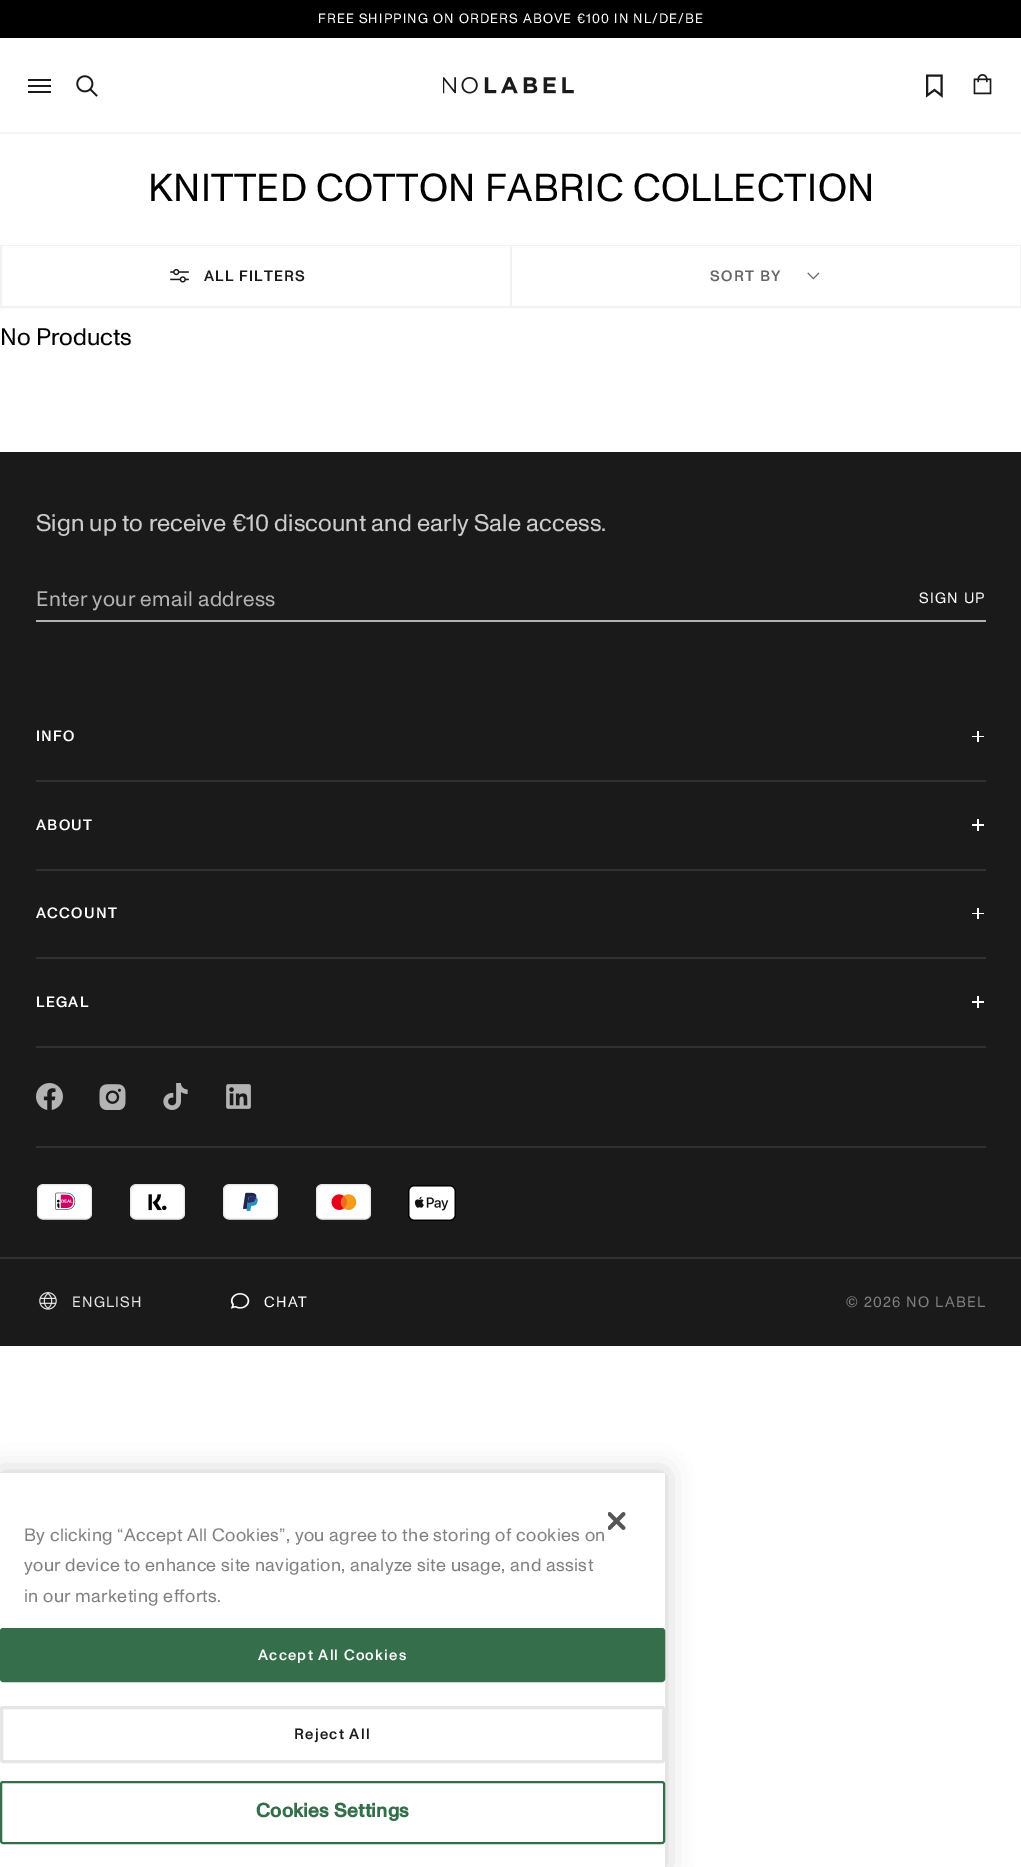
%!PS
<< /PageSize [1021 1867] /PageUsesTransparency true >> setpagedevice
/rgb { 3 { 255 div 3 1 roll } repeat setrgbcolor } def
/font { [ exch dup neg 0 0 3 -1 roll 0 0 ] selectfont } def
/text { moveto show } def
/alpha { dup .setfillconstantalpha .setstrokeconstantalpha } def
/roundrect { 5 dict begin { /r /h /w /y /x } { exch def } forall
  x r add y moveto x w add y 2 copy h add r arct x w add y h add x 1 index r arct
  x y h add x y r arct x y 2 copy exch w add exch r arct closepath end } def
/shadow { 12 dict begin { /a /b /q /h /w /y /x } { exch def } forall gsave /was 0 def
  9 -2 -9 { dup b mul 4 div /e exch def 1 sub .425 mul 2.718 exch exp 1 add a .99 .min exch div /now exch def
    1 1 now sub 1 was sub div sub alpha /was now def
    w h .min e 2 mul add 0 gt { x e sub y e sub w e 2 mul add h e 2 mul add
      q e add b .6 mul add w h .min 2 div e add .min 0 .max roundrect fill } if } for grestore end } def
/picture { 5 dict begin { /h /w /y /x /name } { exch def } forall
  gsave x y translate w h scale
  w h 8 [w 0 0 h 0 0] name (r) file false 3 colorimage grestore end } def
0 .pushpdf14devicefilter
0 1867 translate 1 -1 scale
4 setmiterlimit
255 255 255 rgb
0 0 1021 1867 rectfill
0 0 0 rgb
0 0 1021 38 rectfill
26 26 26 rgb
28 79 23 2 rectfill
28 85 23 2 rectfill
28 91 23 2 rectfill
(img_01.rgb) 76 75 22 22 picture
(img_02.rgb) 443 77 131 17 picture
1.9 setlinewidth
941.5 95.5 moveto -7 -5.5 rlineto -7.5 5.5 rlineto 0 -20 rlineto 14.5 0 rlineto closepath stroke
(img_03.rgb) 973 74 19 21 picture
243 244 246 rgb
0 132 1021 2 rectfill
242 242 242 rgb
2 setlinewidth
1 246 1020 61 rectstroke
255 255 255 rgb
2 246 1018 1 rectfill
242 242 242 rgb
510 246 2 60 rectfill
(img_04.rgb) 170 268 19 15 picture
(img_05.rgb) 807 272 13 8 picture
26 26 26 rgb
0 452 1021 894 rectfill
179 179 179 rgb
36 620 950 2 rectfill
255 255 255 rgb
977 731 2 11 rectfill
972 736 12 1 rectfill
49 49 49 rgb
36 780 950 2 rectfill
255 255 255 rgb
977 819 2 12 rectfill
972 824 12 2 rectfill
49 49 49 rgb
36 869 950 2 rectfill
255 255 255 rgb
977 908 2 11 rectfill
972 913 12 1 rectfill
49 49 49 rgb
36 957 950 2 rectfill
255 255 255 rgb
977 996 2 12 rectfill
972 1001 12 2 rectfill
49 49 49 rgb
36 1046 950 2 rectfill
36 1146 950 2 rectfill
(img_06.rgb) 36 1083 27 27 picture
(img_07.rgb) 99 1084 27 26 picture
(img_08.rgb) 163 1083 25 27 picture
(img_09.rgb) 226 1084 25 25 picture
0 1257 1021 2 rectfill
(img_10.rgb) 37 1184 55 36 picture
(img_11.rgb) 130 1184 55 36 picture
(img_12.rgb) 223 1184 55 36 picture
(img_13.rgb) 316 1184 55 36 picture
(img_14.rgb) 408 1185 48 36 picture
(img_15.rgb) 39 1292 18 18 picture
(img_16.rgb) 230 1293 20 16 picture
0 0 0 rgb
0 1473 665 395 0 13.5 0.2 shadow
255 255 255 rgb
0 1473 665 394 rectfill
(img_17.rgb) 608 1512 18 18 picture
52 110 74 rgb
1 1629 663 52 2 roundrect gsave fill grestore
stroke
230 230 230 rgb
3 setlinewidth
1.5 1707.5 662 54 1.5 roundrect stroke
52 110 74 rgb
2 setlinewidth
1 1782 663 61 2 roundrect stroke
/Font-Regular 13.5 font
255 255 255 rgb
318 23 moveto 1.1 0 (FREE SHIPPING ON ORDERS ABOVE €100 IN NL/DE/BE) ashow
/Font-Regular 39 font
0 0 0 rgb
148 201 moveto 0.4 0 (KNITTED COTTON FABRIC COLLECTION) ashow
/Font-Medium 15 font
26 26 26 rgb
204 281 moveto 1.25 0 (ALL FILTERS) ashow
102 102 102 rgb
710 281 moveto 1.25 0 (SORT BY) ashow
/Font-Regular 24 font
0 0 0 rgb
(No Products) 0 345 text
204 204 204 rgb
(Sign up to receive €10 discount and early Sale access.) 36 531 text
/Font-Regular 21 font
179 179 179 rgb
36 606 moveto 0.4 0 (Enter your email address) ashow
/Font-Regular 15 font
255 255 255 rgb
919 603 moveto 1.25 0 (SIGN UP) ashow
/Font-Medium 15 font
36 741 moveto 1.25 0 (INFO) ashow
36 830 moveto 1.25 0 (ABOUT) ashow
36 918 moveto 1.25 0 (ACCOUNT) ashow
36 1007 moveto 1.25 0 (LEGAL) ashow
/Font-Regular 15 font
230 230 230 rgb
72 1307 moveto 1.25 0 (ENGLISH) ashow
255 255 255 rgb
264 1307 moveto 1.25 0 (CHAT) ashow
128 128 128 rgb
846 1307 moveto 1.25 0 (© 2026 NO LABEL) ashow
/Font-Regular 18 font
24 1541 moveto 0.35 0 (By clicking “Accept All Cookies”, you agree to the storing of cookies on) ashow
24 1571 moveto 0.35 0 (your device to enhance site navigation, analyze site usage, and assist) ashow
24 1602 moveto 0.35 0 (in our marketing efforts.) ashow
/Font-Medium 15 font
255 255 255 rgb
258 1660 moveto 1.25 0 (Accept All Cookies) ashow
26 26 26 rgb
294 1739 moveto 1.25 0 (Reject All) ashow
/Font-Bold 19.5 font
52 110 74 rgb
256 1817 moveto 0.25 0 (Cookies Settings) ashow
.poppdf14devicefilter showpage
